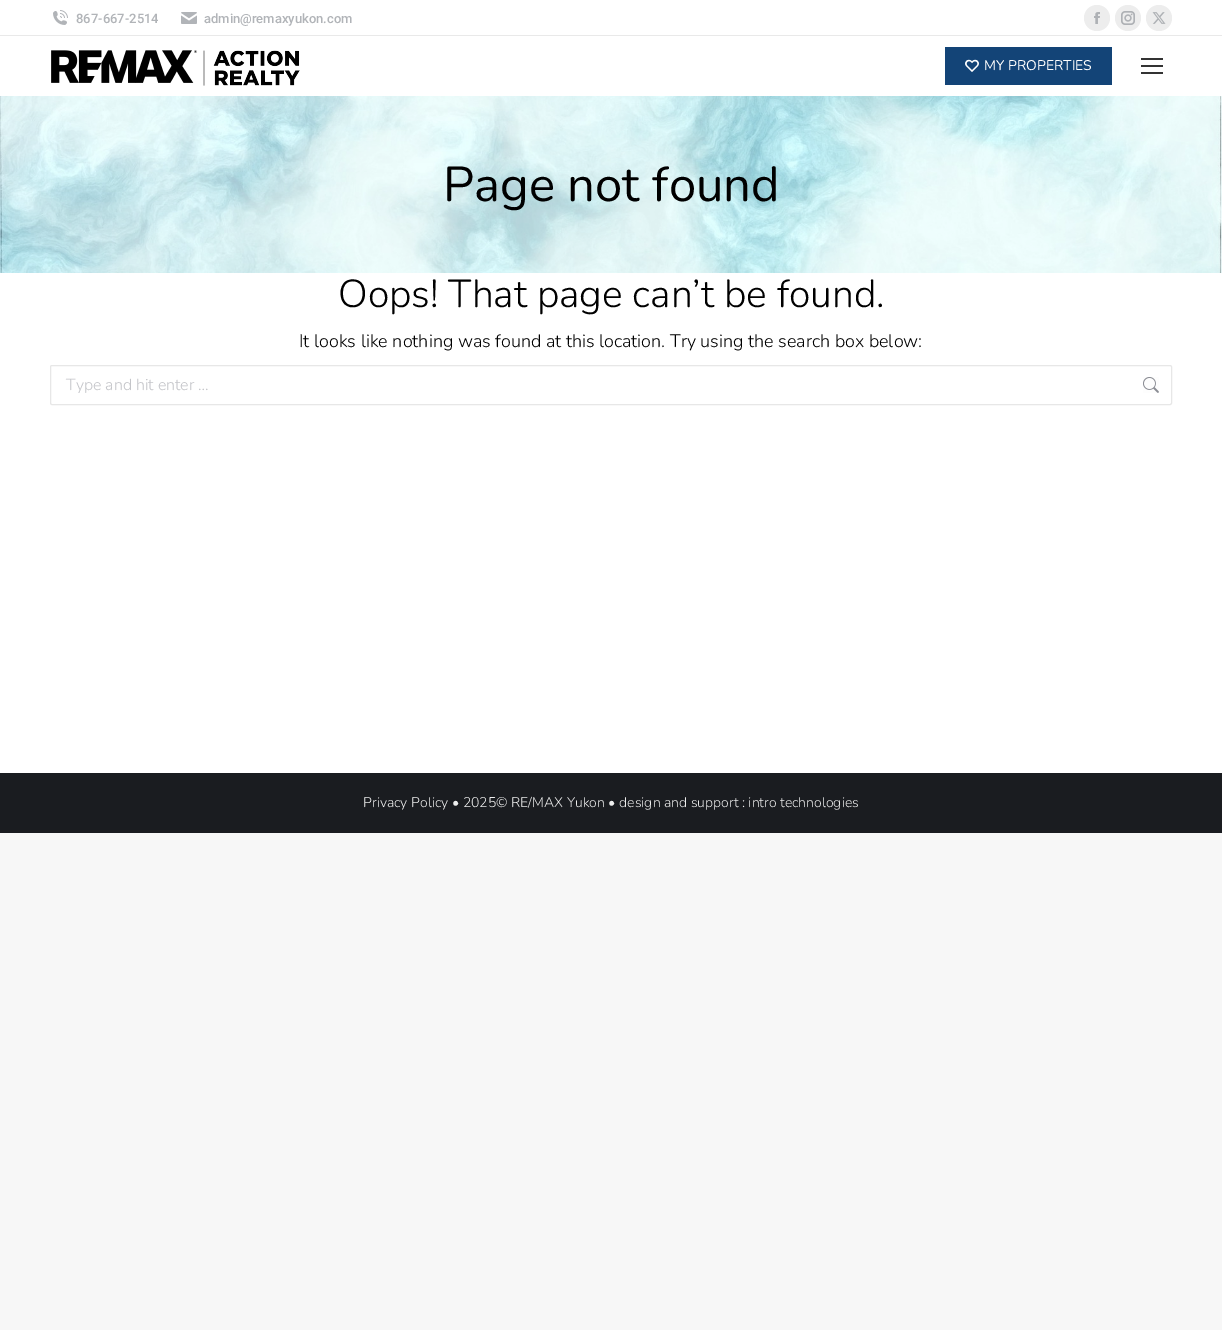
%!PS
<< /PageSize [1222 1330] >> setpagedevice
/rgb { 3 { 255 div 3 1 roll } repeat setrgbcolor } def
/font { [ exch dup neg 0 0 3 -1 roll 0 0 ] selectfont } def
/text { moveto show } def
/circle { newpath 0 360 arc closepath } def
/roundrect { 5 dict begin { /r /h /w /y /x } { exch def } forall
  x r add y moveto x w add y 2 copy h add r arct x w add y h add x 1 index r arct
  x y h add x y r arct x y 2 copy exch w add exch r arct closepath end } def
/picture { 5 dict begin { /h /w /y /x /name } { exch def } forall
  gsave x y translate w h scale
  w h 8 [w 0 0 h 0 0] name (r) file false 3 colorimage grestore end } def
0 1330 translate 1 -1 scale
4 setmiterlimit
247 247 247 rgb
0 0 1222 1330 rectfill
255 255 255 rgb
0 0 1222 773 rectfill
(img_01.rgb) 53 10 15 15 picture
(img_02.rgb) 181 12 16 12 picture
237 237 237 rgb
1097 18 13 circle fill
(img_03.rgb) 1094 12 6 12 picture
1128 18 13 circle fill
(img_04.rgb) 1121 11 14 14 picture
1159 18 13 circle fill
(img_05.rgb) 1152 12 14 12 picture
233 233 233 rgb
0 35 1222 1 rectfill
(img_06.rgb) 51 50 249 36 picture
19 68 119 rgb
945 47 167 38 rectfill
(img_07.rgb) 965 59 14 13 picture
51 51 51 rgb
1141 58 22 2 rectfill
1141 65 22 2 rectfill
1141 72 22 2 rectfill
(img_08.rgb) 0 96 1222 177 picture
231 231 231 rgb
50.5 365.5 1121 39 1.5 roundrect stroke
(img_09.rgb) 1143 377 16 16 picture
26 28 32 rgb
0 773 1222 60 rectfill
/Roboto-Medium 13 font
177 180 184 rgb
(867-667-2514) 76 23 text
(admin@remaxyukon.com) 204 23 text
/Nunito-Regular 14 font
255 255 255 rgb
(MY PROPERTIES) 984 70 text
/Nunito-Regular 49 font
0 0 0 rgb
(Page not found) 443 201 text
/Nunito-Light 39 font
(Oops! That page can’t be found.) 338 307 text
/Nunito-Light 18 font
(It looks like nothing was found at this location. Try using the search box below:) 299 347 text
/Nunito-Light 16 font
196 197 201 rgb
(Type and hit enter …) 66 390 text
/Nunito-Light 14 font
238 238 238 rgb
(Privacy Policy • 2025© RE/MAX Yukon • design and support : intro technologies) 363 807 text
showpage
